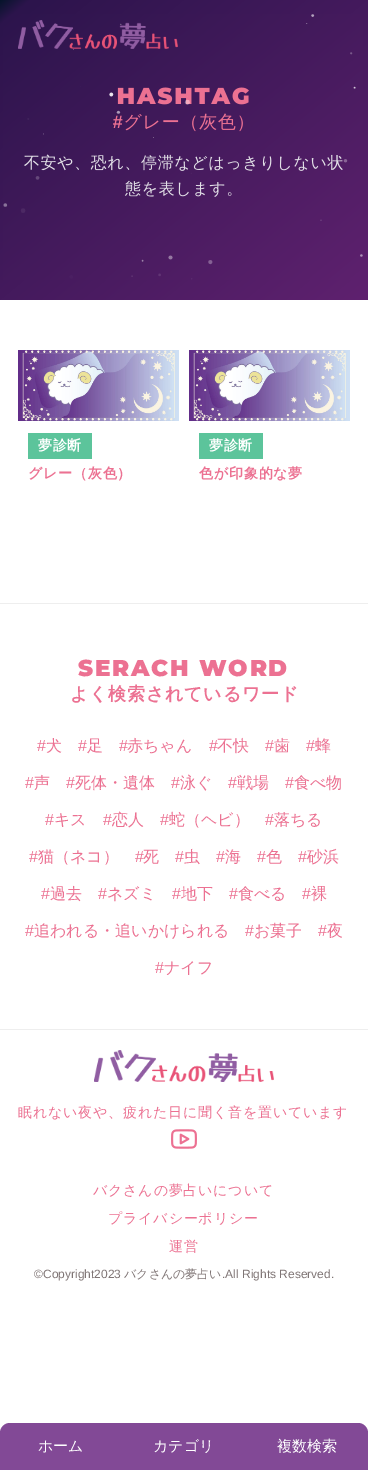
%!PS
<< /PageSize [368 1470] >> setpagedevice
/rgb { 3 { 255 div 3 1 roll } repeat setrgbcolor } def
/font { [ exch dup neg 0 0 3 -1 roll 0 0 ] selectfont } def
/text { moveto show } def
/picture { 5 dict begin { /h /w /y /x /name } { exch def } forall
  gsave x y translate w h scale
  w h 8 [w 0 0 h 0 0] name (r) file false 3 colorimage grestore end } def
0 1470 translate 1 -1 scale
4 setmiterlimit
255 255 255 rgb
0 0 368 1470 rectfill
gsave 0 0 moveto 368 0 rlineto 0 300 rlineto -368 0 rlineto closepath clip newpath
<< /ShadingType 2 /ColorSpace /DeviceRGB /Coords [74 -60 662 660] /Extend [true true] /Function << /FunctionType 3 /Domain [0 1] /Functions [<< /FunctionType 2 /Domain [0 1] /C0 [0.024 0.078 0.169] /C1 [0.173 0.078 0.298] /N 1 >> << /FunctionType 2 /Domain [0 1] /C0 [0.173 0.078 0.298] /C1 [0.471 0.153 0.502] /N 1 >> << /FunctionType 2 /Domain [0 1] /C0 [0.471 0.153 0.502] /C1 [0.533 0.247 0.533] /N 1 >>] /Bounds [0.02 0.74] /Encode [0 1 0 1 0 1] >> >> shfill grestore
(img_03.rgb) 18 350 161 71 picture
92 196 155 rgb
28 433 64 26 rectfill
(img_04.rgb) 189 350 161 71 picture
199 433 64 26 rectfill
238 238 238 rgb
0 603 368 1 rectfill
0 1029 368 1 rectfill
(img_05.rgb) 94 1050 180 32 picture
(img_06.rgb) 171 1129 26 20 picture
130 73 150 rgb
10 1423 moveto 348 0 rlineto 5.5 0 10 4.5 10 10 rcurveto 0 37 rlineto -368 0 rlineto 0 -37 rlineto 0 -5.5 4.5 -10 10 -10 rcurveto closepath fill
/Montserrat-Thin 23 font
236 113 146 rgb
117 104 moveto 1.75 0 (HASHTAG) ashow
/LiberationSans-Bold 18 font
113 128 moveto 0.75 0 (#) ashow
/WenQuanYiZenHei-Bold 18 font
123 128 moveto 0.75 0 (グレー（灰色）) ashow
/WenQuanYiZenHei-Medium 16 font
226 224 231 rgb
24 168 moveto 0.6 0 (不安や、恐れ、停滞などはっきりしない状) ashow
125 194 moveto 0.6 0 (態を表します。) ashow
(img_02.rgb) 3 14 360 266 picture
(img_01.rgb) 18 20 160 29 picture
/WenQuanYiZenHei-Bold 14 font
255 255 255 rgb
38 450 moveto 0.5 0 (夢診断) ashow
236 113 146 rgb
28 478 moveto 0.8 0 (グレー（灰色）) ashow
255 255 255 rgb
209 450 moveto 0.5 0 (夢診断) ashow
236 113 146 rgb
199 478 moveto 0.8 0 (色が印象的な夢) ashow
/Montserrat-Thin 23 font
78 676 moveto 1.75 0 (SERACH WORD) ashow
/WenQuanYiZenHei-Bold 18 font
70 700 moveto 0.75 0 (よく検索されているワード) ashow
/LiberationSans-Regular 16 font
(#) 37 751 text
/WenQuanYiZenHei-Medium 16 font
(犬) 46 751 text
/LiberationSans-Regular 16 font
(#) 78 751 text
/WenQuanYiZenHei-Medium 16 font
(足) 87 751 text
/LiberationSans-Regular 16 font
(#) 119 751 text
/WenQuanYiZenHei-Medium 16 font
(赤ちゃん) 127 751 text
/LiberationSans-Regular 16 font
(#) 209 751 text
/WenQuanYiZenHei-Medium 16 font
(不快) 217 751 text
/LiberationSans-Regular 16 font
(#) 265 751 text
/WenQuanYiZenHei-Medium 16 font
(歯) 274 751 text
/LiberationSans-Regular 16 font
(#) 306 751 text
/WenQuanYiZenHei-Medium 16 font
(蜂) 315 751 text
/LiberationSans-Regular 16 font
(#) 25 788 text
/WenQuanYiZenHei-Medium 16 font
(声) 34 788 text
/LiberationSans-Regular 16 font
(#) 66 788 text
/WenQuanYiZenHei-Medium 16 font
(死体・遺体) 75 788 text
/LiberationSans-Regular 16 font
(#) 171 788 text
/WenQuanYiZenHei-Medium 16 font
(泳ぐ) 180 788 text
/LiberationSans-Regular 16 font
(#) 228 788 text
/WenQuanYiZenHei-Medium 16 font
(戦場) 237 788 text
/LiberationSans-Regular 16 font
(#) 285 788 text
/WenQuanYiZenHei-Medium 16 font
(食べ物) 294 788 text
/LiberationSans-Regular 16 font
(#) 45 825 text
/WenQuanYiZenHei-Medium 16 font
(キス) 54 825 text
/LiberationSans-Regular 16 font
(#) 103 825 text
/WenQuanYiZenHei-Medium 16 font
(恋人) 112 825 text
/LiberationSans-Regular 16 font
(#) 160 825 text
/WenQuanYiZenHei-Medium 16 font
(蛇（ヘビ）) 169 825 text
/LiberationSans-Regular 16 font
(#) 265 825 text
/WenQuanYiZenHei-Medium 16 font
(落ちる) 274 825 text
/LiberationSans-Regular 16 font
(#) 29 862 text
/WenQuanYiZenHei-Medium 16 font
(猫（ネコ）) 38 862 text
/LiberationSans-Regular 16 font
(#) 135 862 text
/WenQuanYiZenHei-Medium 16 font
(死) 143 862 text
/LiberationSans-Regular 16 font
(#) 175 862 text
/WenQuanYiZenHei-Medium 16 font
(虫) 184 862 text
/LiberationSans-Regular 16 font
(#) 216 862 text
/WenQuanYiZenHei-Medium 16 font
(海) 225 862 text
/LiberationSans-Regular 16 font
(#) 257 862 text
/WenQuanYiZenHei-Medium 16 font
(色) 266 862 text
/LiberationSans-Regular 16 font
(#) 298 862 text
/WenQuanYiZenHei-Medium 16 font
(砂浜) 307 862 text
/LiberationSans-Regular 16 font
(#) 41 899 text
/WenQuanYiZenHei-Medium 16 font
(過去) 50 899 text
/LiberationSans-Regular 16 font
(#) 98 899 text
/WenQuanYiZenHei-Medium 16 font
(ネズミ) 107 899 text
/LiberationSans-Regular 16 font
(#) 172 899 text
/WenQuanYiZenHei-Medium 16 font
(地下) 181 899 text
/LiberationSans-Regular 16 font
(#) 229 899 text
/WenQuanYiZenHei-Medium 16 font
(食べる) 238 899 text
/LiberationSans-Regular 16 font
(#) 302 899 text
/WenQuanYiZenHei-Medium 16 font
(裸) 311 899 text
/LiberationSans-Regular 16 font
(#) 25 936 text
/WenQuanYiZenHei-Medium 16 font
(追われる・追いかけられる) 34 936 text
/LiberationSans-Regular 16 font
(#) 245 936 text
/WenQuanYiZenHei-Medium 16 font
(お菓子) 254 936 text
/LiberationSans-Regular 16 font
(#) 318 936 text
/WenQuanYiZenHei-Medium 16 font
(夜) 327 936 text
/LiberationSans-Regular 16 font
(#) 155 973 text
/WenQuanYiZenHei-Medium 16 font
(ナイフ) 164 973 text
/WenQuanYiZenHei-Medium 14 font
18 1117 moveto 0.8 0 (眠れない夜や、疲れた日に聞く音を置いています) ashow
93 1195 moveto 0.8 0 (バクさんの夢占いについて) ashow
108 1223 moveto 0.8 0 (プライバシーポリシー) ashow
169 1251 moveto 0.8 0 (運営) ashow
/LiberationSans-Regular 12 font
127 117 117 rgb
(©Copyright2023) 34 1278 text
/WenQuanYiZenHei-Medium 12 font
(バクさんの夢占い) 124 1278 text
/LiberationSans-Regular 12 font
(.All Rights Reserved.) 222 1278 text
/WenQuanYiZenHei-Medium 15 font
255 255 255 rgb
(ホーム) 38 1451 text
(カテゴリ) 153 1451 text
(複数検索) 277 1451 text
showpage
